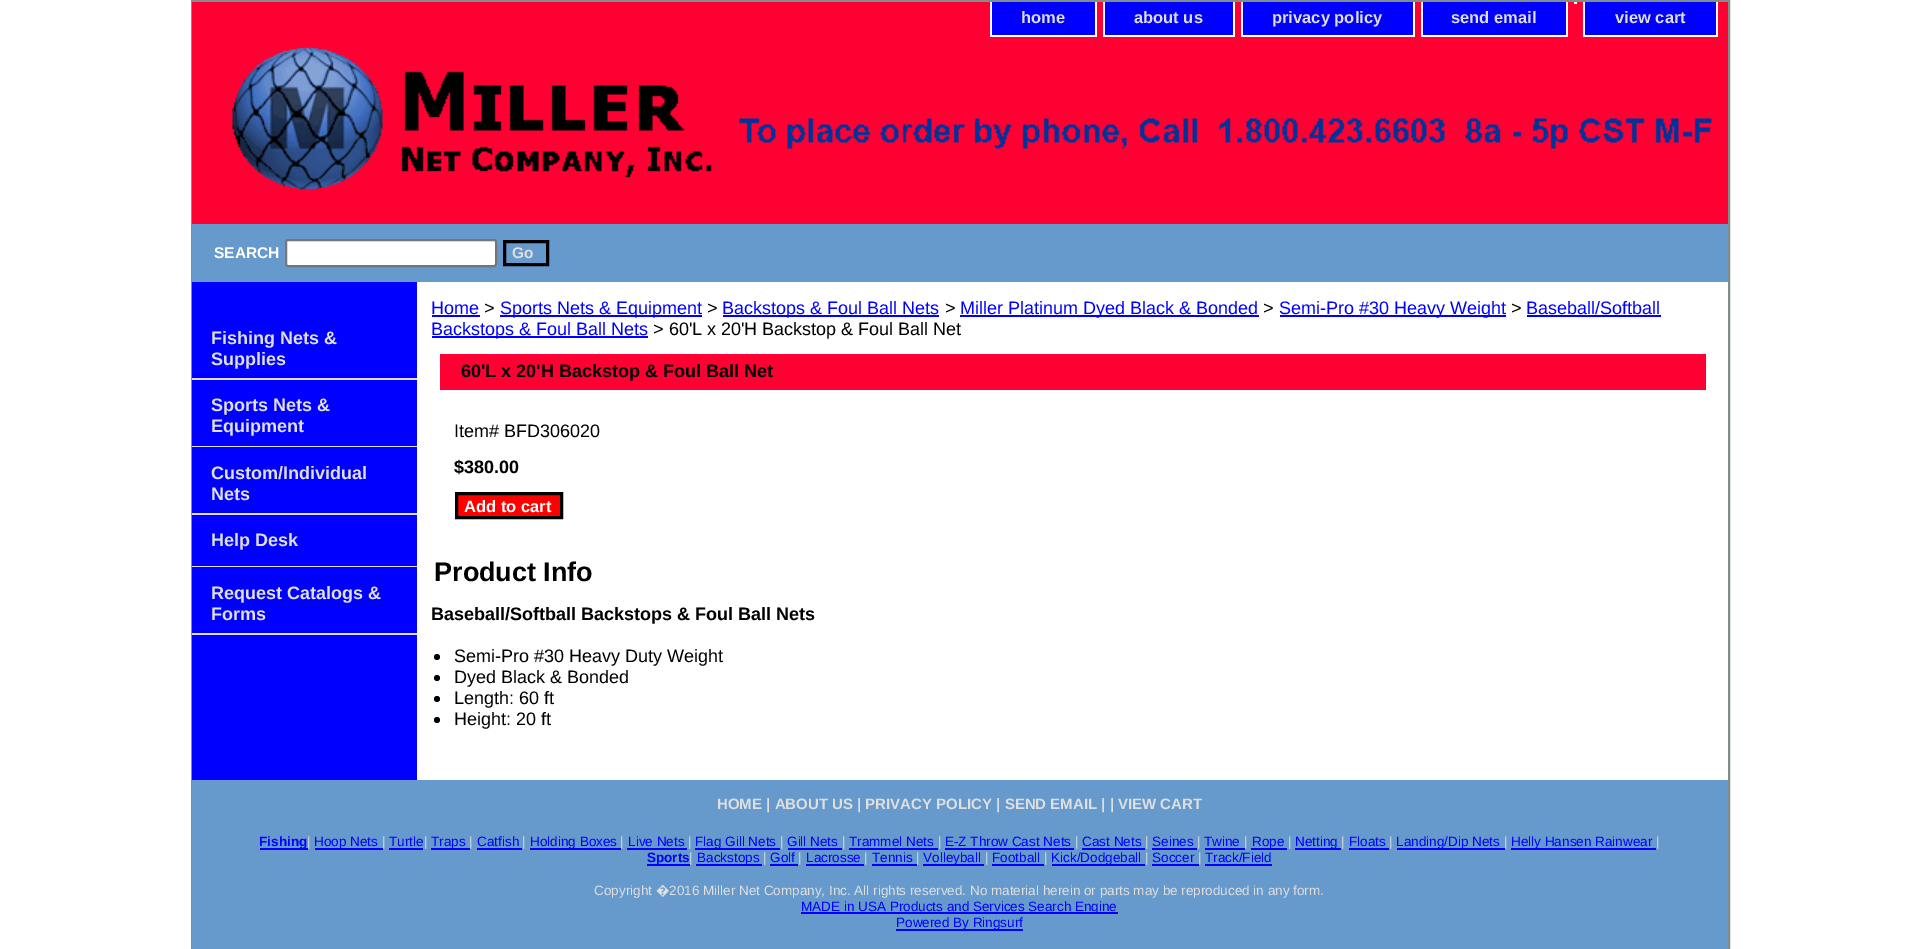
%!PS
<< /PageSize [1918 949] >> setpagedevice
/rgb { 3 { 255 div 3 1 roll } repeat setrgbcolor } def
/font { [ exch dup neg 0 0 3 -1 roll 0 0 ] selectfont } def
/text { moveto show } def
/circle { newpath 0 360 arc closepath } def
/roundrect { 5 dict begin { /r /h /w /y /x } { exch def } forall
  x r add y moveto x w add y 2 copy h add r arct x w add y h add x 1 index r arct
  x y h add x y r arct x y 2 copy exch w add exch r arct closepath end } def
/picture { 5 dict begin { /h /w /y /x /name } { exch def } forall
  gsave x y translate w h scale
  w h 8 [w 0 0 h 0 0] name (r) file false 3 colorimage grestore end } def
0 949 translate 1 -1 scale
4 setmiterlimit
255 255 255 rgb
0 0 1918 949 rectfill
127 142 137 rgb
2 setlinewidth
192 1 1537 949 rectstroke
255 0 51 rgb
192 2 1536 222 rectfill
255 255 255 rgb
1574 2 3 2 rectfill
0 0 255 rgb
992 2 103 33 rectfill
255 255 255 rgb
1095 2 2 34 rectfill
990 35 107 2 rectfill
990 2 2 34 rectfill
0 0 255 rgb
1105 2 128 33 rectfill
255 255 255 rgb
1233 2 2 34 rectfill
1103 35 132 2 rectfill
1103 2 2 34 rectfill
0 0 255 rgb
1243 2 170 33 rectfill
255 255 255 rgb
1413 2 2 34 rectfill
1241 35 174 2 rectfill
1241 2 2 34 rectfill
0 0 255 rgb
1423 2 143 33 rectfill
255 255 255 rgb
1566 2 2 34 rectfill
1421 35 147 2 rectfill
1421 2 2 34 rectfill
0 0 255 rgb
1585 2 131 33 rectfill
255 255 255 rgb
1716 2 2 34 rectfill
1583 35 135 2 rectfill
1583 2 2 34 rectfill
(img_01.rgb) 232 47 1480 143 picture
102 153 204 rgb
192 224 1536 58 rectfill
255 255 255 rgb
286 240 210 26 2 roundrect gsave fill grestore
118 118 118 rgb
stroke
0 0 0 rgb
3 setlinewidth
504.5 241.5 43 23 rectstroke
0 0 255 rgb
192 282 225 498 rectfill
223 223 223 rgb
192 378 225 2 rectfill
192 446 225 1 rectfill
192 513 225 2 rectfill
192 566 225 1 rectfill
192 633 225 2 rectfill
0 0 255 rgb
432 315 48 2 rectfill
500 315 202 2 rectfill
723 315 216 2 rectfill
960 315 299 2 rectfill
1280 315 226 2 rectfill
1527 315 134 2 rectfill
432 336 216 2 rectfill
255 0 51 rgb
440 354 1266 36 rectfill
255 0 0 rgb
456.5 493.5 moveto 105 0 rlineto 0 24 rlineto -105 0 rlineto closepath gsave fill grestore
0 0 0 rgb
stroke
437 657 3 circle fill
437 678 3 circle fill
437 699 3 circle fill
437 720 3 circle fill
102 153 204 rgb
192 780 1536 169 rectfill
0 0 255 rgb
260 848 48 2 rectfill
315 848 68 2 rectfill
389 848 34 2 rectfill
431 848 39 2 rectfill
477 848 45 2 rectfill
530 848 91 2 rectfill
627 848 60 2 rectfill
695 848 85 2 rectfill
788 848 54 2 rectfill
849 848 89 2 rectfill
945 848 129 2 rectfill
1082 848 63 2 rectfill
1152 848 45 2 rectfill
1205 848 40 2 rectfill
1251 848 36 2 rectfill
1295 848 46 2 rectfill
1349 848 40 2 rectfill
1397 848 108 2 rectfill
1511 848 145 2 rectfill
647 864 43 2 rectfill
696 864 66 2 rectfill
770 864 28 2 rectfill
806 864 58 2 rectfill
872 864 45 2 rectfill
923 864 61 2 rectfill
992 864 52 2 rectfill
1052 864 93 2 rectfill
1152 864 47 2 rectfill
1205 864 67 2 rectfill
801 912 317 2 rectfill
896 929 127 2 rectfill
/LiberationSans-Bold 16.5 font
223 223 223 rgb
(home) 1021 23 text
(about us) 1134 23 text
(privacy policy) 1272 23 text
(send email) 1451 23 text
(view cart) 1615 23 text
/LiberationSans-Bold 15.5 font
255 255 255 rgb
(SEARCH) 214 258 text
223 223 223 rgb
(Go) 512 258 text
/LiberationSans-Bold 18 font
(Fishing Nets &) 211 344 text
(Supplies) 211 365 text
(Sports Nets &) 211 411 text
(Equipment) 211 432 text
(Custom/Individual) 211 479 text
(Nets) 211 500 text
(Help Desk) 211 546 text
(Request Catalogs &) 211 599 text
(Forms) 211 620 text
/LiberationSans-Regular 18 font
0 0 255 rgb
(Home) 431 314 text
0 0 0 rgb
(>) 484 314 text
0 0 255 rgb
(Sports Nets & Equipment) 500 314 text
0 0 0 rgb
(>) 707 314 text
0 0 255 rgb
(Backstops & Foul Ball Nets) 722 314 text
0 0 0 rgb
(>) 945 314 text
0 0 255 rgb
(Miller Platinum Dyed Black & Bonded) 960 314 text
0 0 0 rgb
(>) 1263 314 text
0 0 255 rgb
(Semi-Pro #30 Heavy Weight) 1279 314 text
0 0 0 rgb
(>) 1511 314 text
0 0 255 rgb
(Baseball/Softball) 1526 314 text
(Backstops & Foul Ball Nets) 431 335 text
0 0 0 rgb
(> 60'L x 20'H Backstop & Foul Ball Net) 653 335 text
/LiberationSans-Bold 18 font
(60'L x 20'H Backstop & Foul Ball Net) 461 377 text
/LiberationSans-Regular 18 font
(Item# BFD306020) 454 437 text
/LiberationSans-Bold 18 font
($380.00) 454 473 text
/LiberationSans-Bold 16.5 font
255 255 255 rgb
(Add to cart) 464 512 text
/LiberationSans-Bold 27 font
0 0 0 rgb
(Product Info) 434 581 text
/LiberationSans-Bold 18 font
(Baseball/Softball Backstops & Foul Ball Nets) 431 620 text
/LiberationSans-Regular 18 font
(Semi-Pro #30 Heavy Duty Weight) 454 662 text
(Dyed Black & Bonded) 454 683 text
(Length: 60 ft) 454 704 text
(Height: 20 ft) 454 725 text
/LiberationSans-Bold 15 font
223 223 223 rgb
(HOME | ABOUT US | PRIVACY POLICY | SEND EMAIL | | VIEW CART) 717 809 text
/LiberationSans-Bold 13.5 font
0 0 255 rgb
(Fishing) 259 846 text
/LiberationSans-Regular 13.5 font
223 223 223 rgb
(|) 307 846 text
0 0 255 rgb
(Hoop Nets) 314 846 text
223 223 223 rgb
(|) 382 846 text
0 0 255 rgb
(Turtle) 389 846 text
223 223 223 rgb
(|) 424 846 text
0 0 255 rgb
(Traps) 431 846 text
223 223 223 rgb
(|) 469 846 text
0 0 255 rgb
(Catfish) 477 846 text
223 223 223 rgb
(|) 522 846 text
0 0 255 rgb
(Holding Boxes) 530 846 text
223 223 223 rgb
(|) 620 846 text
0 0 255 rgb
(Live Nets) 628 846 text
223 223 223 rgb
(|) 688 846 text
0 0 255 rgb
(Flag Gill Nets) 695 846 text
223 223 223 rgb
(|) 780 846 text
0 0 255 rgb
(Gill Nets) 787 846 text
223 223 223 rgb
(|) 842 846 text
0 0 255 rgb
(Trammel Nets) 849 846 text
223 223 223 rgb
(|) 938 846 text
0 0 255 rgb
(E-Z Throw Cast Nets) 945 846 text
223 223 223 rgb
(|) 1075 846 text
0 0 255 rgb
(Cast Nets) 1082 846 text
223 223 223 rgb
(|) 1145 846 text
0 0 255 rgb
(Seines) 1152 846 text
223 223 223 rgb
(|) 1197 846 text
0 0 255 rgb
(Twine) 1204 846 text
223 223 223 rgb
(|) 1244 846 text
0 0 255 rgb
(Rope) 1252 846 text
223 223 223 rgb
(|) 1288 846 text
0 0 255 rgb
(Netting) 1295 846 text
223 223 223 rgb
(|) 1341 846 text
0 0 255 rgb
(Floats) 1349 846 text
223 223 223 rgb
(|) 1389 846 text
0 0 255 rgb
(Landing/Dip Nets) 1396 846 text
223 223 223 rgb
(|) 1504 846 text
0 0 255 rgb
(Helly Hansen Rainwear) 1511 846 text
223 223 223 rgb
(|) 1656 846 text
/LiberationSans-Bold 13.5 font
0 0 255 rgb
(Sports) 647 862 text
/LiberationSans-Regular 13.5 font
223 223 223 rgb
(|) 689 862 text
0 0 255 rgb
(Backstops) 697 862 text
223 223 223 rgb
(|) 763 862 text
0 0 255 rgb
(Golf) 770 862 text
223 223 223 rgb
(|) 798 862 text
0 0 255 rgb
(Lacrosse) 806 862 text
223 223 223 rgb
(|) 864 862 text
0 0 255 rgb
(Tennis) 872 862 text
223 223 223 rgb
(|) 916 862 text
0 0 255 rgb
(Volleyball) 923 862 text
223 223 223 rgb
(|) 985 862 text
0 0 255 rgb
(Football) 992 862 text
223 223 223 rgb
(|) 1044 862 text
0 0 255 rgb
(Kick/Dodgeball) 1051 862 text
223 223 223 rgb
(|) 1145 862 text
0 0 255 rgb
(Soccer) 1152 862 text
223 223 223 rgb
(|) 1198 862 text
0 0 255 rgb
(Track/Field) 1205 862 text
223 223 223 rgb
(Copyright) 594 895 text
/NotoSans-Regular 13.5 font
(�) 656 895 text
/LiberationSans-Regular 13.5 font
(2016 Miller Net Company, Inc. All rights reserved. No material herein or parts may be reproduced in any form.) 669 895 text
0 0 255 rgb
(MADE in USA Products and Services Search Engine) 801 911 text
(Powered By Ringsurf) 896 927 text
showpage
